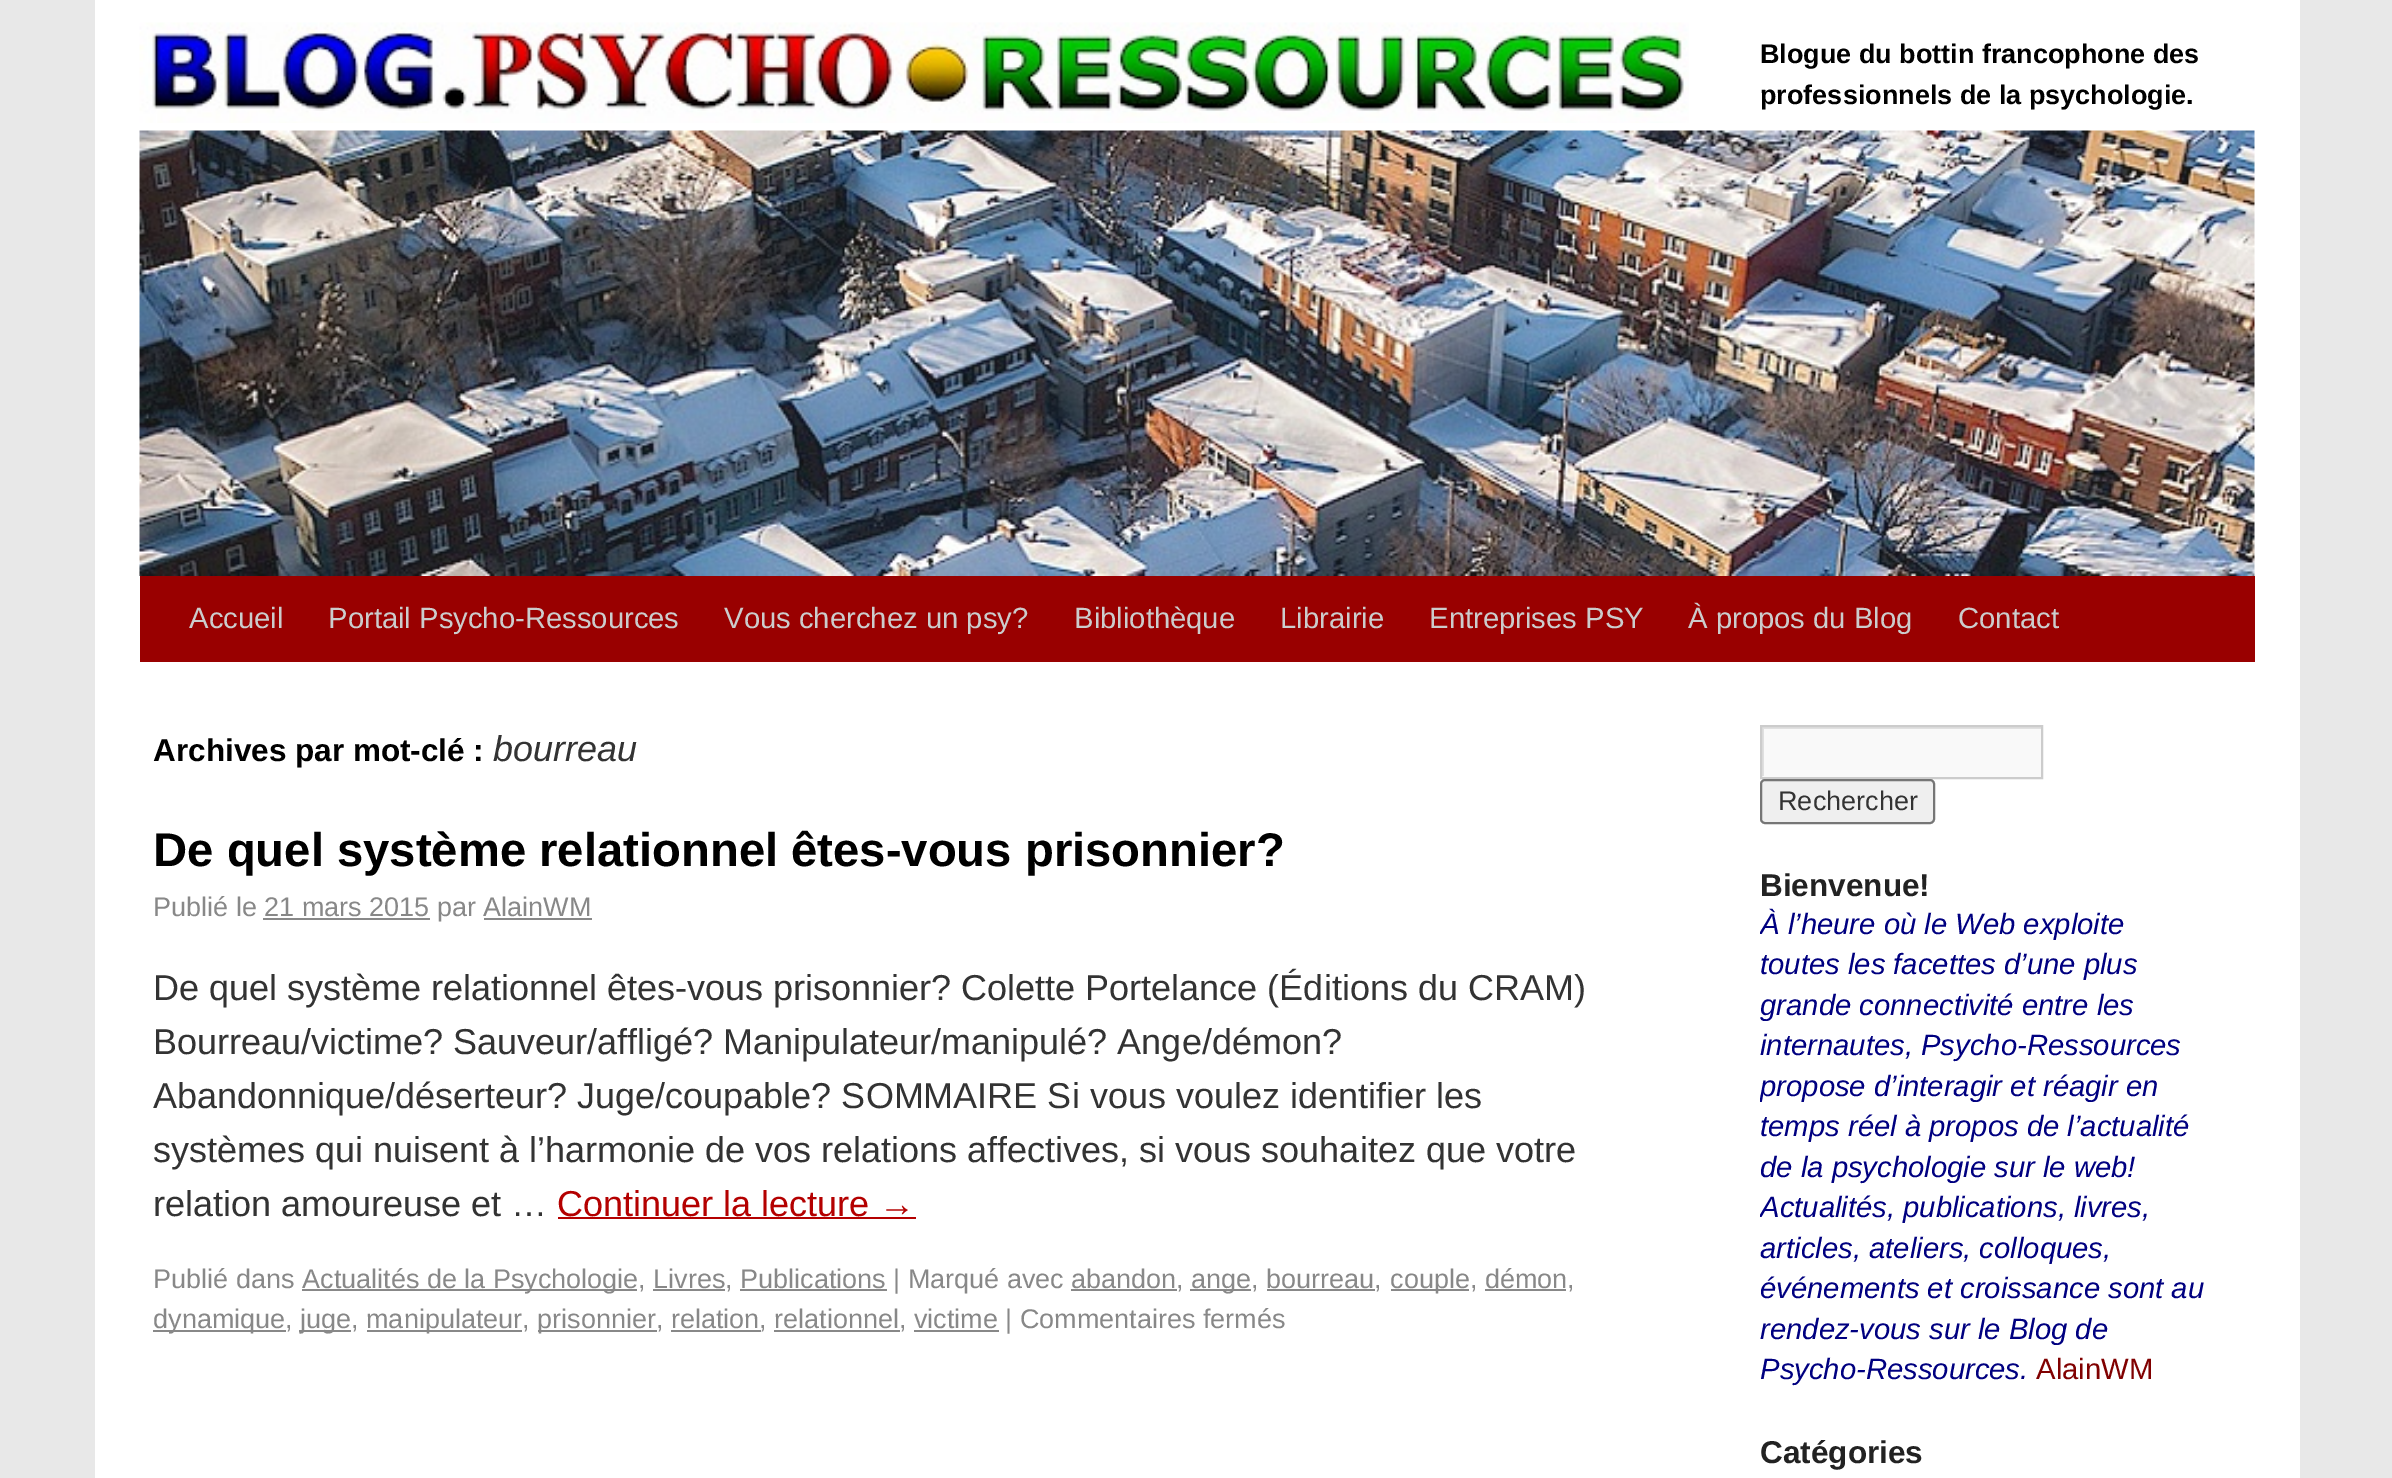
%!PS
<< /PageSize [2392 1478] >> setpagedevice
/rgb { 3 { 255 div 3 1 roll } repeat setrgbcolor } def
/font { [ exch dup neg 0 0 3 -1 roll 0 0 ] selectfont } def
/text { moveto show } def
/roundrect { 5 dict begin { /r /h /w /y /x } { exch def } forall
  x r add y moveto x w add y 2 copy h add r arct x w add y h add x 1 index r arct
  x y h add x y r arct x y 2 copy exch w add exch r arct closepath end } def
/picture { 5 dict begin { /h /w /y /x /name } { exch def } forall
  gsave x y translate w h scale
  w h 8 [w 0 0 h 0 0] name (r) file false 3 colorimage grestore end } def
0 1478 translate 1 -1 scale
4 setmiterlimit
232 232 232 rgb
0 0 2392 1478 rectfill
255 255 255 rgb
95 0 2205 1478 rectfill
(img_01.rgb) 139 22 1550 101 picture
(img_02.rgb) 139 130 2116 446 picture
153 0 0 rgb
140 576 2115 86 rectfill
136 136 136 rgb
263 918 167 2 rectfill
484 918 108 2 rectfill
180 0 0 rgb
558 1217 358 2 rectfill
136 136 136 rgb
302 1289 335 2 rectfill
653 1289 72 2 rectfill
740 1289 147 2 rectfill
1071 1289 106 2 rectfill
1190 1289 61 2 rectfill
1267 1289 108 2 rectfill
1391 1289 78 2 rectfill
1485 1289 81 2 rectfill
153 1330 133 2 rectfill
299 1330 52 2 rectfill
367 1330 155 2 rectfill
538 1330 119 2 rectfill
671 1330 90 2 rectfill
774 1330 126 2 rectfill
914 1330 85 2 rectfill
249 249 249 rgb
1762 729 279 48 rectfill
gsave
1762 727 279 49 rectclip
224 224 224 rgb
1539 504 moveto 725 0 rlineto 0 495 rlineto -725 0 rlineto closepath 1764 729 moveto 279 0 rlineto 0 49 rlineto -279 0 rlineto closepath eofill
grestore
204 204 204 rgb
2 setlinewidth
1761 726 281 52 rectstroke
239 239 239 rgb
1761 780 173 43 4 roundrect gsave fill grestore
118 118 118 rgb
stroke
/LiberationSans-Bold 27 font
0 0 0 rgb
(Blogue du bottin francophone des) 1760 63 text
(professionnels de la psychologie.) 1760 104 text
/LiberationSans-Regular 29.25 font
204 204 204 rgb
(Accueil) 189 628 text
(Portail Psycho-Ressources) 328 628 text
(Vous cherchez un psy?) 724 628 text
(Bibliothèque) 1074 628 text
(Librairie) 1280 628 text
(Entreprises PSY) 1429 628 text
(À propos du Blog) 1688 628 text
(Contact) 1958 628 text
/LiberationSans-Bold 31.5 font
0 0 0 rgb
(Archives par mot-clé :) 153 761 text
/LiberationSans-Italic 36 font
51 51 51 rgb
(bourreau) 493 761 text
/LiberationSans-Bold 47.25 font
0 0 0 rgb
(De quel système relationnel êtes-vous prisonnier?) 153 866 text
/LiberationSans-Regular 27 font
136 136 136 rgb
(Publié le 21 mars 2015 par AlainWM) 153 916 text
/LiberationSans-Regular 36 font
51 51 51 rgb
(De quel système relationnel êtes-vous prisonnier? Colette Portelance \(Éditions du CRAM\)) 153 1000 text
(Bourreau/victime? Sauveur/affligé? Manipulateur/manipulé? Ange/démon?) 153 1054 text
(Abandonnique/déserteur? Juge/coupable? SOMMAIRE Si vous voulez identifier les) 153 1108 text
(systèmes qui nuisent à l’harmonie de vos relations affectives, si vous souhaitez que votre) 153 1162 text
(relation amoureuse et …) 153 1216 text
180 0 0 rgb
(Continuer la lecture →) 557 1216 text
/LiberationSans-Regular 27 font
136 136 136 rgb
(Publié dans) 153 1288 text
(Actualités de la Psychologie, Livres, Publications | Marqué avec abandon,) 302 1288 text
(ange, bourreau,) 1191 1288 text
(couple, démon,) 1390 1288 text
(dynamique,) 153 1328 text
(juge,) 300 1328 text
(manipulateur,) 366 1328 text
(prisonnier, relation, relationnel, victime | Commentaires fermés) 537 1328 text
51 51 51 rgb
(Rechercher) 1778 810 text
/LiberationSans-Bold 31.5 font
34 34 34 rgb
(Bienvenue!) 1760 896 text
gsave
1760 725 495 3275 rectclip
/LiberationSans-Italic 29.25 font
0 0 128 rgb
(À l’heure où le Web exploite) 1760 934 text
grestore
/LiberationSans-Italic 29.25 font
0 0 128 rgb
(toutes les facettes d’une plus) 1760 974 text
(grande connectivité entre les) 1760 1015 text
(internautes, Psycho-Ressources) 1760 1055 text
gsave
1760 725 495 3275 rectclip
(propose d’interagir et réagir en) 1760 1096 text
grestore
(temps réel à propos de l’actualité) 1760 1136 text
(de la psychologie sur le web!) 1760 1177 text
gsave
1760 725 495 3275 rectclip
(Actualités, publications, livres,) 1760 1217 text
grestore
(articles, ateliers, colloques,) 1760 1258 text
(événements et croissance sont au) 1760 1298 text
(rendez-vous sur le Blog de) 1760 1339 text
(Psycho-Ressources.) 1760 1379 text
/LiberationSans-Regular 29.25 font
128 0 0 rgb
(AlainWM) 2036 1379 text
/LiberationSans-Bold 31.5 font
34 34 34 rgb
(Catégories) 1760 1463 text
showpage
